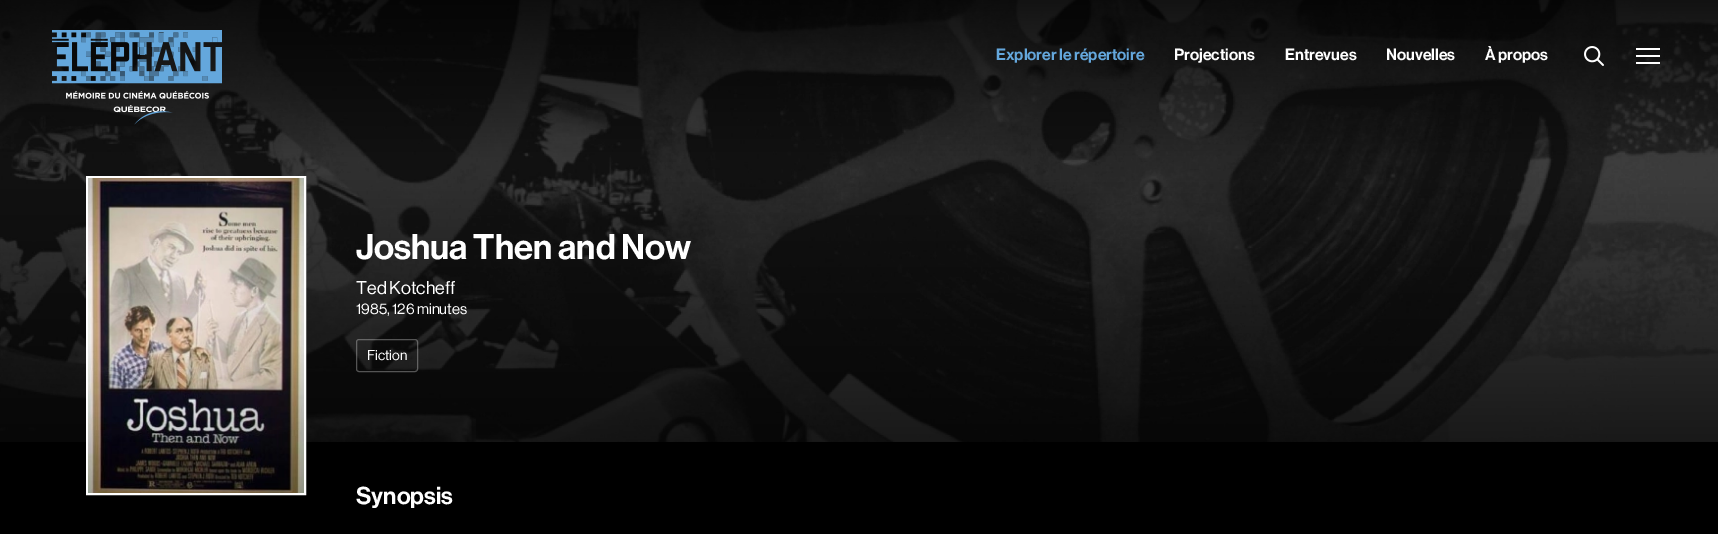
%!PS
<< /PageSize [1718 534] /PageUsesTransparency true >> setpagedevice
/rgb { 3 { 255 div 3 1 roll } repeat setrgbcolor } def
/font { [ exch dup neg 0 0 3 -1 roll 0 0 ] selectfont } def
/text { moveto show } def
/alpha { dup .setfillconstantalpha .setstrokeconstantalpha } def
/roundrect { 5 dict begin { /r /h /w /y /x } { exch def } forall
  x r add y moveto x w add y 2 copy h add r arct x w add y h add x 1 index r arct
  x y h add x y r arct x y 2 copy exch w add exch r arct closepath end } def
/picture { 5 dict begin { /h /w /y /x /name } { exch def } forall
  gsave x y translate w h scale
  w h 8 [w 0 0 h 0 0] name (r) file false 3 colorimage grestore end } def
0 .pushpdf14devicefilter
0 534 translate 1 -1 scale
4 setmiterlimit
0 0 0 rgb
0 0 1718 534 rectfill
(img_03.rgb) 0 0 1718 442 picture
(img_01.rgb) 52 30 170 95 picture
(img_02.rgb) 1584 46 20 20 picture
255 255 255 rgb
1636 48 24 2 rectfill
1636 55 24 2 rectfill
1636 62 24 2 rectfill
2 setlinewidth
87 177 218 317 rectstroke
(img_04.rgb) 88 178 216 315 picture
0.3 alpha
1 setlinewidth
356.5 339.5 61 32 2.5 roundrect stroke
/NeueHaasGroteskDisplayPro-Medium 16 font
1 alpha
100 167 220 rgb
(Explorer le répertoire) 996 60 text
255 255 255 rgb
(Projections) 1174 60 text
(Entrevues) 1285 60 text
(Nouvelles) 1386 60 text
(À propos) 1485 60 text
/NeueHaasGroteskDisplayPro-Medium 35 font
(Joshua Then and Now) 356 259 text
/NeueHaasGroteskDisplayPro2-Medium 18 font
(Ted Kotcheff) 356 294 text
/NeueHaasGroteskDisplayPro2-Medium 15 font
(1985, 126 minutes) 356 314 text
/NeueHaasGroteskDisplayPro2-Medium 14 font
(Fiction) 367 360 text
/NeueHaasGroteskDisplayPro-Medium 24 font
(Synopsis) 356 504 text
.poppdf14devicefilter showpage
